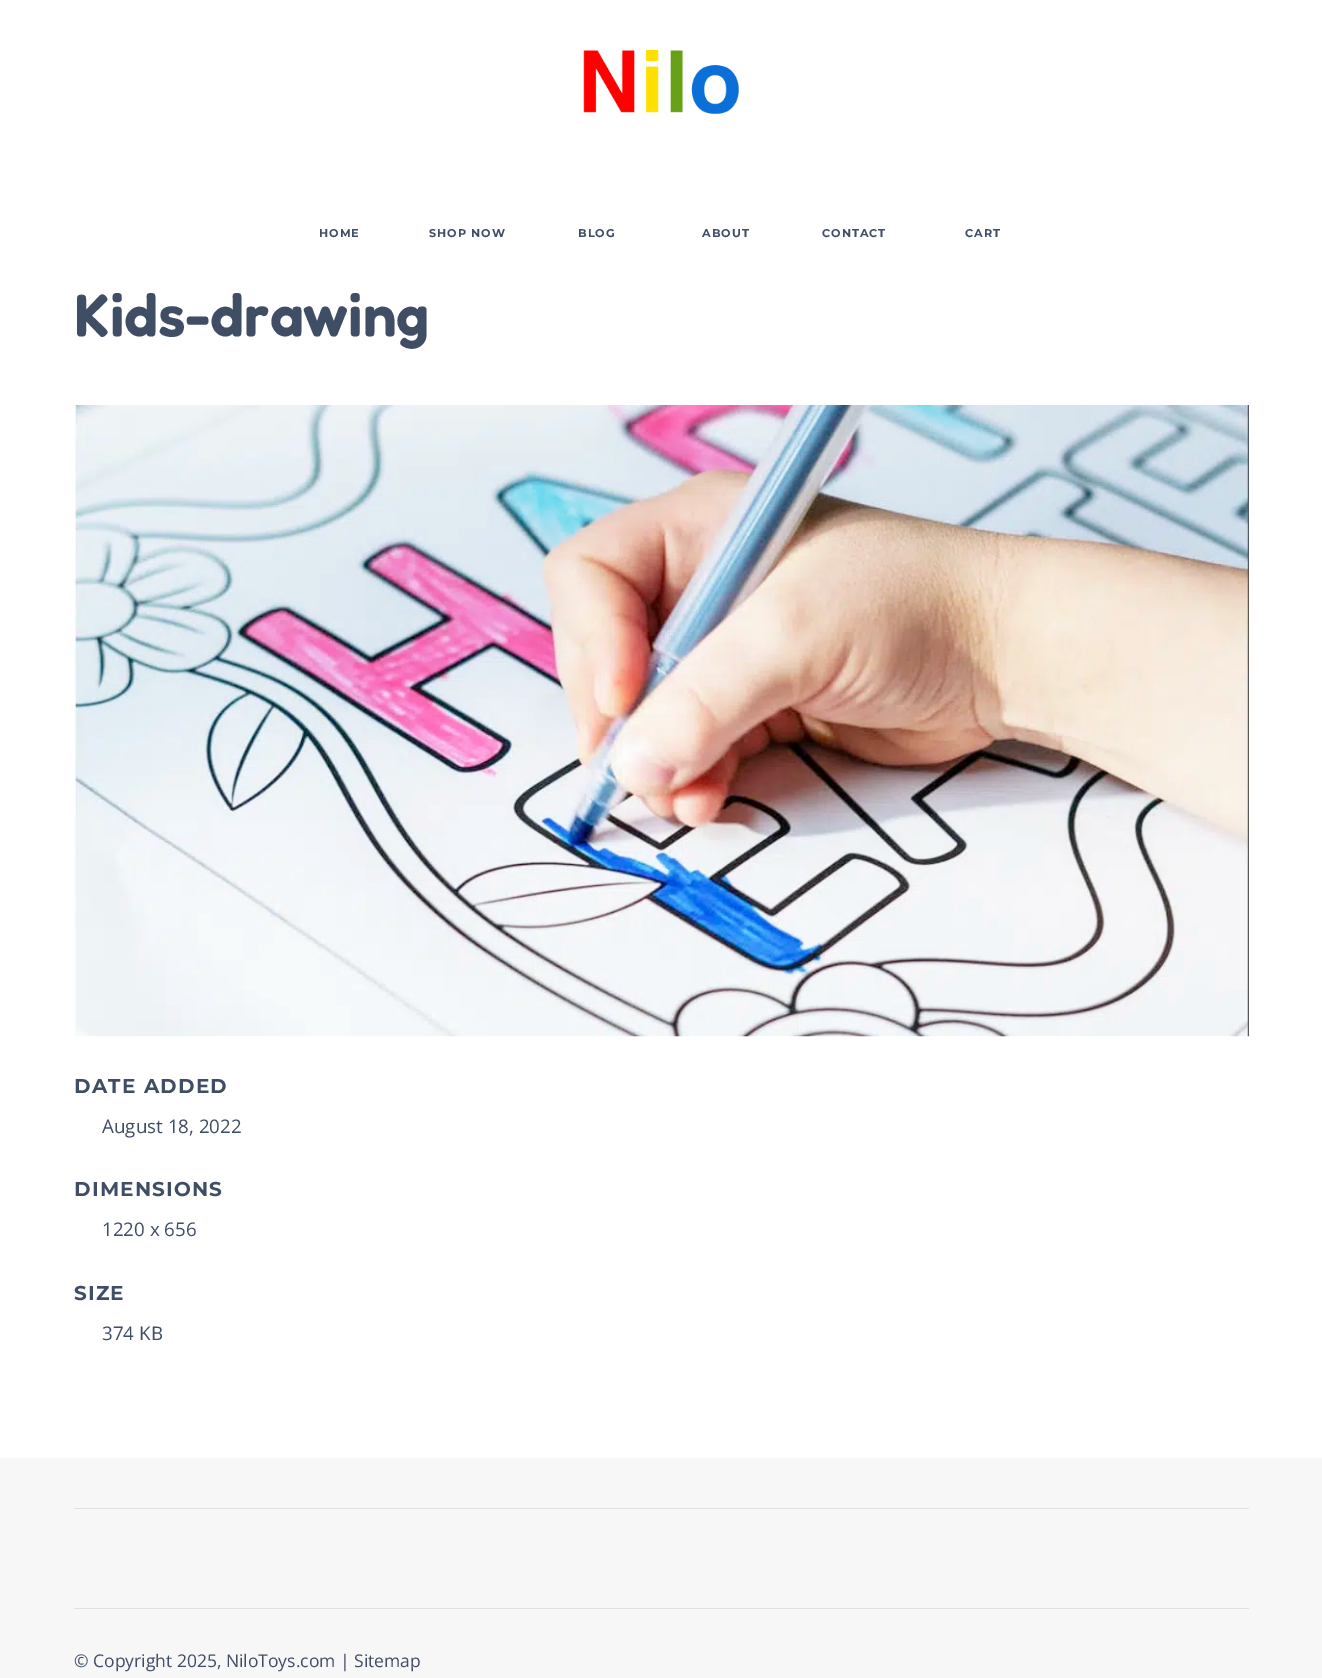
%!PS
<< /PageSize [1322 1678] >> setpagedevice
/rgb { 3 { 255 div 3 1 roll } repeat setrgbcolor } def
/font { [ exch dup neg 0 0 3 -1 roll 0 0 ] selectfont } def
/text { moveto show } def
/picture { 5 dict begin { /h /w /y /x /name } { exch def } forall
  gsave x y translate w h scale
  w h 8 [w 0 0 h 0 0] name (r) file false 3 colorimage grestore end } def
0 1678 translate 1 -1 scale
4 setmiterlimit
255 255 255 rgb
0 0 1322 1678 rectfill
(img_01.rgb) 583 50 156 64 picture
(img_02.rgb) 73 405 1176 632 picture
247 247 247 rgb
0 1458 1322 220 rectfill
225 225 225 rgb
74 1508 1175 1 rectfill
74 1608 1175 1 rectfill
/Montserrat-Bold 11.25 font
64 78 101 rgb
319 237 moveto 1 0 (HOME) ashow
429 237 moveto 1 0 (SHOP NOW) ashow
578 237 moveto 1 0 (BLOG) ashow
702 237 moveto 1 0 (ABOUT) ashow
822 237 moveto 1 0 (CONTACT) ashow
965 237 moveto 1 0 (CART) ashow
/Fredoka-SemiBold 60 font
(Kids-drawing) 74 336 text
/Montserrat-Bold 20 font
74 1093 moveto 1.25 0 (DATE ADDED) ashow
/OpenSans-Regular 18.75 font
(August 18, 2022) 102 1133 text
/Montserrat-Bold 20 font
74 1196 moveto 1.25 0 (DIMENSIONS) ashow
/OpenSans-Regular 18.75 font
(1220 x 656) 102 1236 text
/Montserrat-Bold 20 font
74 1300 moveto 1.25 0 (SIZE) ashow
/OpenSans-Regular 18.75 font
(374 KB) 102 1340 text
/OpenSans-Regular 17.5 font
(© Copyright 2025, NiloToys.com | Sitemap) 74 1667 text
showpage
